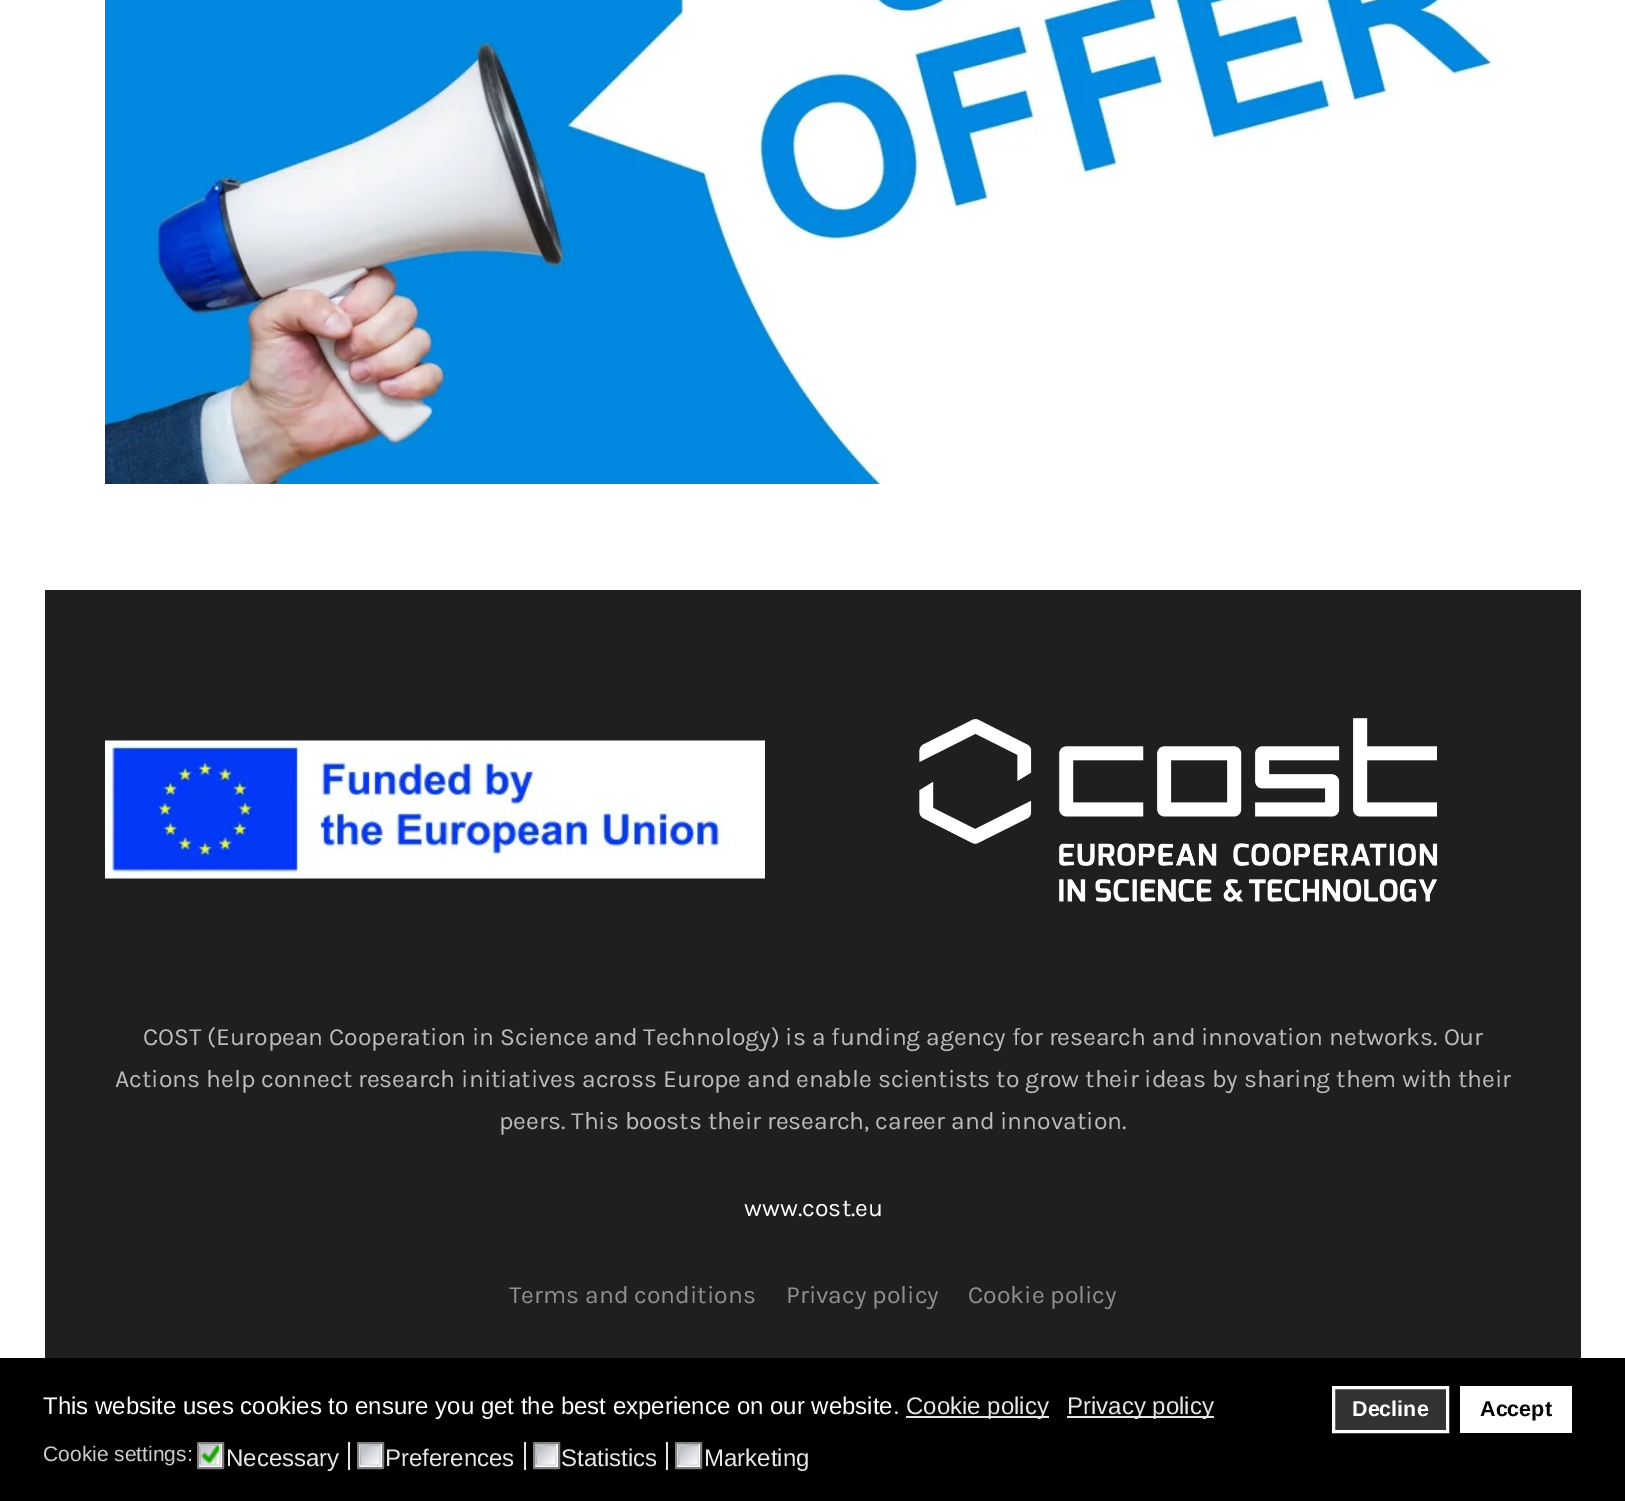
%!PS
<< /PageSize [1625 1501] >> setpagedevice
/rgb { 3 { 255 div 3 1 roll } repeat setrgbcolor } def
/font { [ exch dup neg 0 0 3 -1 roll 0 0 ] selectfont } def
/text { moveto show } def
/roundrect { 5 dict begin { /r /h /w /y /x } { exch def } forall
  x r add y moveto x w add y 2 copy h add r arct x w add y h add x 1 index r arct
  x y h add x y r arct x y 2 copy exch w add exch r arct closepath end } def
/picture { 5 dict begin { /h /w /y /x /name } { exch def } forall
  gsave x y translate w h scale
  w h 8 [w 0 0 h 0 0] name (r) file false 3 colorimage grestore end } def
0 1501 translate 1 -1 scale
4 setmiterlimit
255 255 255 rgb
0 0 1625 1501 rectfill
(img_01.rgb) 105 0 1389 484 picture
31 31 31 rgb
45 590 1536 768 rectfill
(img_02.rgb) 105 740 660 139 picture
(img_03.rgb) 919 718 519 184 picture
0 0 0 rgb
0 1358 1625 143 rectfill
230 230 230 rgb
906 1416 143 2 rectfill
1067 1416 147 2 rectfill
51 51 51 rgb
1333.5 1387.5 moveto 114 0 rlineto 0 44 rlineto -114 0 rlineto closepath gsave fill grestore
255 255 255 rgb
3 setlinewidth
stroke
1460 1386 112 47 rectfill
198 1443 25 25 0.5 roundrect gsave fill grestore
128 128 128 rgb
2 setlinewidth
stroke
(img_04.rgb) 199 1444 22 22 picture
220 221 222 rgb
1.5 setlinewidth
219.5 1445.5 moveto 0.5 0.5 0.5 8 0.5 9.5 rcurveto 0 12.5 2.5 10 -10 10 rcurveto -1.5 0 -9 0 -9.5 -0.5 rcurveto stroke
179 179 179 rgb
200.5 1464.5 moveto -0.5 -0.5 -0.5 -8 -0.5 -9.5 rcurveto 0 -12.5 -2.5 -10 10 -10 rcurveto 1.5 0 9 0 9.5 0.5 rcurveto stroke
230 230 230 rgb
348 1442 2 28 rectfill
255 255 255 rgb
358 1443 25 25 0.5 roundrect gsave fill grestore
128 128 128 rgb
2 setlinewidth
stroke
gsave 362 1446 moveto 18 0 rlineto 0 18 rlineto -18 0 rlineto closepath clip newpath
<< /ShadingType 2 /ColorSpace /DeviceRGB /Coords [362 1446 380 1464] /Extend [true true] /Function << /FunctionType 2 /Domain [0 1] /C0 [0.694 0.714 0.745] /C1 [1 1 1] /N 1 >> >> shfill grestore
220 221 222 rgb
1.5 setlinewidth
380 1445.5 moveto 0.5 0.5 0 8 0 9.5 rcurveto 0 12.5 3 10 -9.5 10 rcurveto -1.5 0 -9 0 -9.5 -0.5 rcurveto stroke
179 179 179 rgb
361 1464.5 moveto -0.5 -0.5 0 -8 0 -9.5 rcurveto 0 -12.5 -3 -10 9.5 -10 rcurveto 1.5 0 9 0 9.5 0.5 rcurveto stroke
230 230 230 rgb
524 1442 2 28 rectfill
255 255 255 rgb
534 1443 25 25 0.5 roundrect gsave fill grestore
128 128 128 rgb
2 setlinewidth
stroke
gsave 537 1446 moveto 18 0 rlineto 0 18 rlineto -18 0 rlineto closepath clip newpath
<< /ShadingType 2 /ColorSpace /DeviceRGB /Coords [537 1446 555 1464] /Extend [true true] /Function << /FunctionType 2 /Domain [0 1] /C0 [0.694 0.714 0.745] /C1 [1 1 1] /N 1 >> >> shfill grestore
220 221 222 rgb
1.5 setlinewidth
555.5 1445.5 moveto 0.5 0.5 0.5 8 0.5 9.5 rcurveto 0 12.5 2.5 10 -10 10 rcurveto -1.5 0 -9 0 -9.5 -0.5 rcurveto stroke
179 179 179 rgb
536.5 1464.5 moveto -0.5 -0.5 -0.5 -8 -0.5 -9.5 rcurveto 0 -12.5 -2.5 -10 10 -10 rcurveto 1.5 0 9 0 9.5 0.5 rcurveto stroke
230 230 230 rgb
666 1442 2 28 rectfill
255 255 255 rgb
676 1443 25 25 0.5 roundrect gsave fill grestore
128 128 128 rgb
2 setlinewidth
stroke
gsave 680 1446 moveto 18 0 rlineto 0 18 rlineto -18 0 rlineto closepath clip newpath
<< /ShadingType 2 /ColorSpace /DeviceRGB /Coords [680 1446 698 1464] /Extend [true true] /Function << /FunctionType 2 /Domain [0 1] /C0 [0.694 0.714 0.745] /C1 [1 1 1] /N 1 >> >> shfill grestore
220 221 222 rgb
1.5 setlinewidth
698 1445.5 moveto 0.5 0.5 0 8 0 9.5 rcurveto 0 12.5 3 10 -9.5 10 rcurveto -1.5 0 -9 0 -9.5 -0.5 rcurveto stroke
179 179 179 rgb
679 1464.5 moveto -0.5 -0.5 0 -8 0 -9.5 rcurveto 0 -12.5 -3 -10 9.5 -10 rcurveto 1.5 0 9 0 9.5 0.5 rcurveto stroke
/Karla-Regular 24.75 font
188 188 188 rgb
(COST \(European Cooperation in Science and Technology\) is a funding agency for research and innovation networks. Our) 143 1045 text
(Actions help connect research initiatives across Europe and enable scientists to grow their ideas by sharing them with their) 115 1087 text
(peers. This boosts their research, career and innovation.) 499 1129 text
255 255 255 rgb
(www.cost.eu) 744 1216 text
143 143 143 rgb
(Terms and conditions) 509 1303 text
(Privacy policy) 786 1303 text
(Cookie policy) 968 1303 text
/LiberationSans-Regular 24 font
255 255 255 rgb
(This website uses cookies to ensure you get the best experience on our website.) 43 1414 text
230 230 230 rgb
(Cookie policy) 906 1414 text
(Privacy policy) 1067 1414 text
/LiberationSans-Bold 21.5 font
255 255 255 rgb
(Decline) 1352 1416 text
0 0 0 rgb
(Accept) 1480 1416 text
/LiberationSans-Regular 21 font
204 204 204 rgb
(Cookie settings:) 43 1461 text
/LiberationSans-Regular 24 font
230 230 230 rgb
(Necessary) 226 1466 text
(Preferences) 385 1466 text
(Statistics) 561 1466 text
(Marketing) 704 1466 text
showpage
